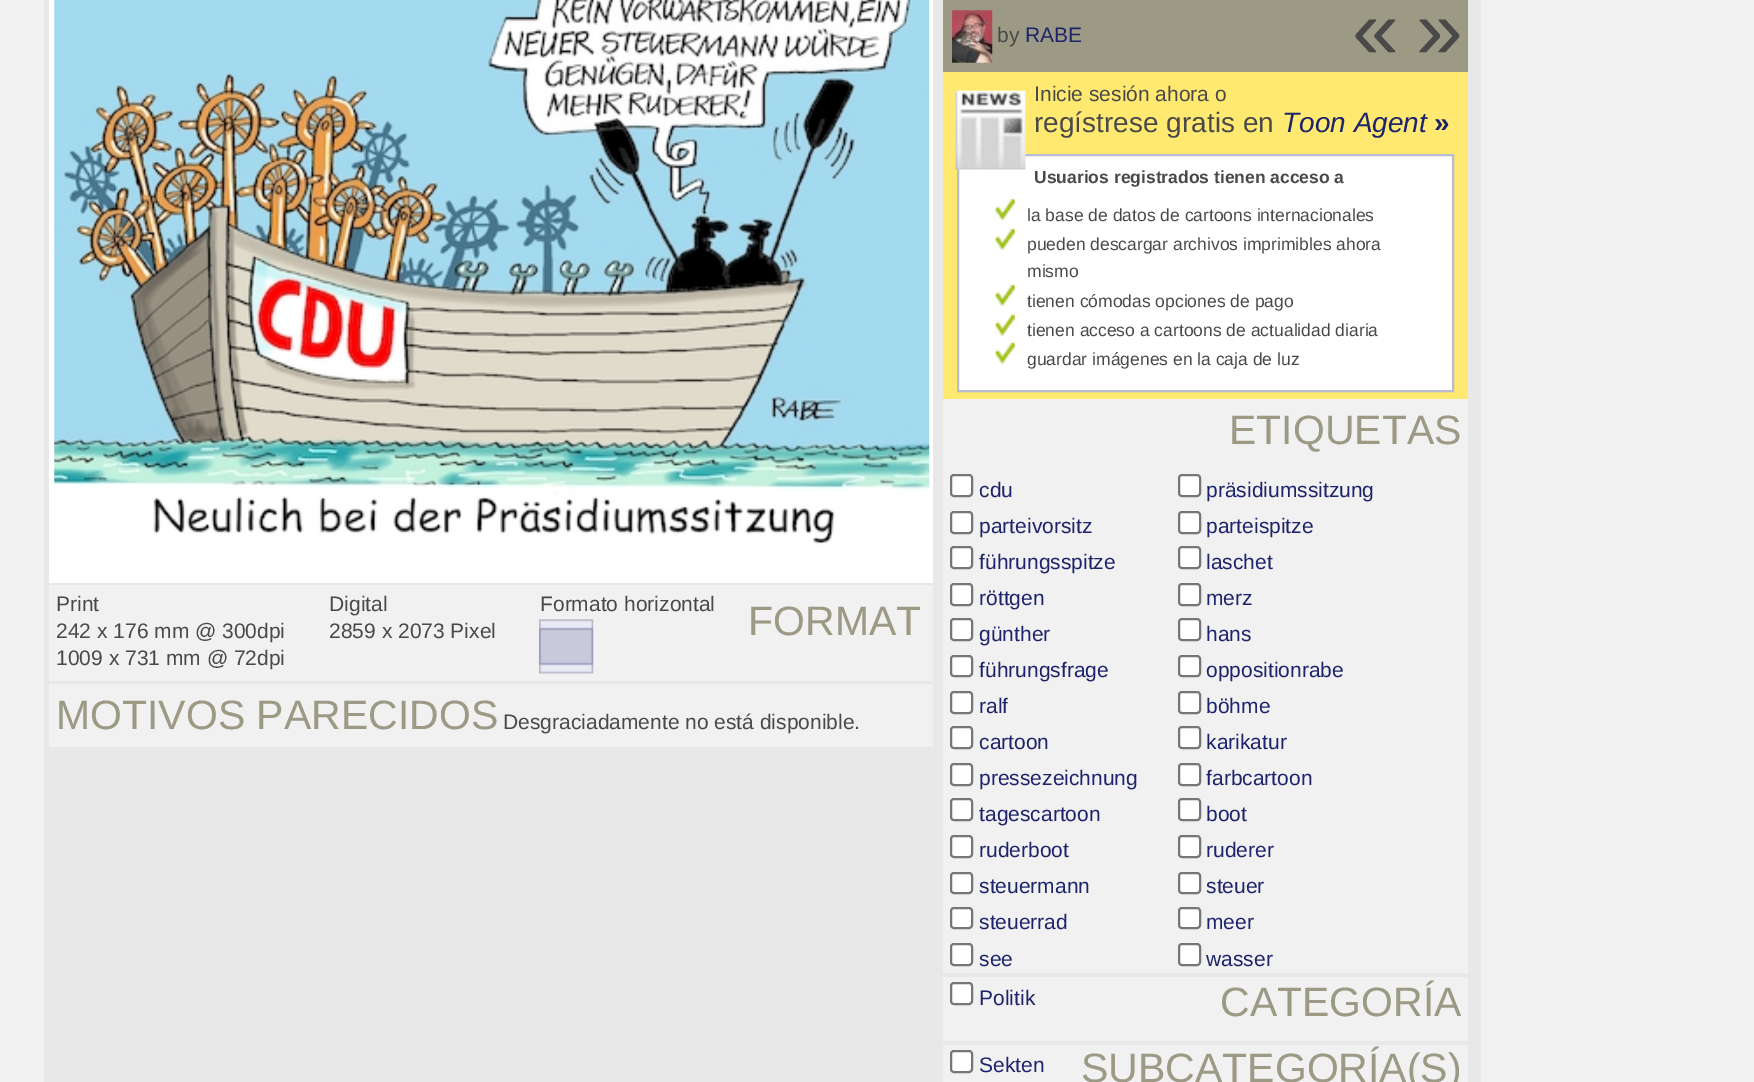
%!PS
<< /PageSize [1754 1082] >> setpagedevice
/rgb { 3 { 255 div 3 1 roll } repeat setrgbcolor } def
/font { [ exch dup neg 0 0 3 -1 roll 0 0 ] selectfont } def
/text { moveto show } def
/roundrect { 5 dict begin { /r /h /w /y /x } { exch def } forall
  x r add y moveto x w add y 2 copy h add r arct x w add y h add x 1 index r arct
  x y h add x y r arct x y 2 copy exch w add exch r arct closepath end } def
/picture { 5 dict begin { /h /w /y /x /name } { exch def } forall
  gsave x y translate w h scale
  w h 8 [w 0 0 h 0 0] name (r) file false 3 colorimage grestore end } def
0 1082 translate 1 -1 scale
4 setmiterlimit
241 241 241 rgb
0 0 1754 1082 rectfill
232 232 232 rgb
44 0 1437 1082 rectfill
255 255 255 rgb
49 0 884 583 rectfill
(img_01.rgb) 54 0 876 549 picture
241 241 241 rgb
49 585 884 96 rectfill
(img_02.rgb) 539 619 55 55 picture
49 684 884 63 rectfill
156 153 132 rgb
943 0 525 72 rectfill
(img_03.rgb) 952 10 41 53 picture
255 233 112 rgb
943 72 525 327 rectfill
255 255 255 rgb
958 155 moveto 495 0 rlineto 0 236 rlineto -495 0 rlineto closepath gsave fill grestore
185 187 208 rgb
2 setlinewidth
stroke
(img_04.rgb) 955 90 71 80 picture
(img_05.rgb) 995 199 20 22 picture
(img_06.rgb) 995 229 20 21 picture
(img_06.rgb) 995 285 20 21 picture
(img_07.rgb) 995 314 20 22 picture
(img_07.rgb) 995 342 20 22 picture
241 241 241 rgb
943 399 525 683 rectfill
255 255 255 rgb
951 475 21 21 3 roundrect gsave fill grestore
118 118 118 rgb
stroke
255 255 255 rgb
1179 475 21 21 3 roundrect gsave fill grestore
118 118 118 rgb
stroke
255 255 255 rgb
951 512 21 21 3 roundrect gsave fill grestore
118 118 118 rgb
stroke
255 255 255 rgb
1179 512 21 21 3 roundrect gsave fill grestore
118 118 118 rgb
stroke
255 255 255 rgb
951 547 21 21 3 roundrect gsave fill grestore
118 118 118 rgb
stroke
255 255 255 rgb
1179 547 21 21 3 roundrect gsave fill grestore
118 118 118 rgb
stroke
255 255 255 rgb
951 584 21 21 3 roundrect gsave fill grestore
118 118 118 rgb
stroke
255 255 255 rgb
1179 584 21 21 3 roundrect gsave fill grestore
118 118 118 rgb
stroke
255 255 255 rgb
951 619 21 21 3 roundrect gsave fill grestore
118 118 118 rgb
stroke
255 255 255 rgb
1179 619 21 21 3 roundrect gsave fill grestore
118 118 118 rgb
stroke
255 255 255 rgb
951 656 21 20 3 roundrect gsave fill grestore
118 118 118 rgb
stroke
255 255 255 rgb
1179 656 21 20 3 roundrect gsave fill grestore
118 118 118 rgb
stroke
255 255 255 rgb
951 692 21 21 3 roundrect gsave fill grestore
118 118 118 rgb
stroke
255 255 255 rgb
1179 692 21 21 3 roundrect gsave fill grestore
118 118 118 rgb
stroke
255 255 255 rgb
951 727 21 21 3 roundrect gsave fill grestore
118 118 118 rgb
stroke
255 255 255 rgb
1179 727 21 21 3 roundrect gsave fill grestore
118 118 118 rgb
stroke
255 255 255 rgb
951 764 21 21 3 roundrect gsave fill grestore
118 118 118 rgb
stroke
255 255 255 rgb
1179 764 21 21 3 roundrect gsave fill grestore
118 118 118 rgb
stroke
255 255 255 rgb
951 799 21 21 3 roundrect gsave fill grestore
118 118 118 rgb
stroke
255 255 255 rgb
1179 799 21 21 3 roundrect gsave fill grestore
118 118 118 rgb
stroke
255 255 255 rgb
951 836 21 21 3 roundrect gsave fill grestore
118 118 118 rgb
stroke
255 255 255 rgb
1179 836 21 21 3 roundrect gsave fill grestore
118 118 118 rgb
stroke
255 255 255 rgb
951 873 21 20 3 roundrect gsave fill grestore
118 118 118 rgb
stroke
255 255 255 rgb
1179 873 21 20 3 roundrect gsave fill grestore
118 118 118 rgb
stroke
255 255 255 rgb
951 908 21 20 3 roundrect gsave fill grestore
118 118 118 rgb
stroke
255 255 255 rgb
1179 908 21 20 3 roundrect gsave fill grestore
118 118 118 rgb
stroke
255 255 255 rgb
951 944 21 21 3 roundrect gsave fill grestore
118 118 118 rgb
stroke
255 255 255 rgb
1179 944 21 21 3 roundrect gsave fill grestore
118 118 118 rgb
stroke
232 232 232 rgb
943 973 525 4 rectfill
255 255 255 rgb
951 983 21 21 3 roundrect gsave fill grestore
118 118 118 rgb
stroke
232 232 232 rgb
943 1041 525 4 rectfill
255 255 255 rgb
951 1051 21 21 3 roundrect gsave fill grestore
118 118 118 rgb
stroke
/LiberationSans-Regular 21 font
73 73 73 rgb
(Print) 56 611 text
(242 x 176 mm @ 300dpi) 56 638 text
(1009 x 731 mm @ 72dpi) 56 665 text
(Digital) 329 611 text
(2859 x 2073 Pixel) 329 638 text
(Formato horizontal) 540 611 text
/LiberationSans-Regular 41 font
156 153 132 rgb
(FORMAT) 748 635 text
(MOTIVOS PARECIDOS) 56 729 text
/LiberationSans-Regular 21 font
73 73 73 rgb
(Desgraciadamente no está disponible.) 503 729 text
(by) 997 42 text
29 36 108 rgb
(RABE) 1025 42 text
/LiberationSans-Regular 84 font
73 73 73 rgb
(«) 1352 58 text
(») 1416 58 text
/LiberationSans-Regular 21 font
(Inicie sesión ahora o) 1034 101 text
/LiberationSans-Regular 28 font
(regístrese gratis en) 1034 132 text
/LiberationSans-Italic 28 font
29 36 108 rgb
(Toon Agent) 1282 132 text
/LiberationSans-Bold 28 font
(») 1434 132 text
/LiberationSans-Bold 17.5 font
73 73 73 rgb
(Usuarios registrados tienen acceso a) 1034 183 text
/LiberationSans-Regular 17.5 font
(la base de datos de cartoons internacionales) 1027 221 text
(pueden descargar archivos imprimibles ahora) 1027 250 text
(mismo) 1027 277 text
(tienen cómodas opciones de pago) 1027 307 text
(tienen acceso a cartoons de actualidad diaria) 1027 336 text
(guardar imágenes en la caja de luz) 1027 365 text
/LiberationSans-Regular 41 font
156 153 132 rgb
(ETIQUETAS) 1229 444 text
/LiberationSans-Regular 21 font
29 36 108 rgb
(cdu) 979 497 text
(präsidiumssitzung) 1206 497 text
(parteivorsitz) 979 533 text
(parteispitze) 1206 533 text
(führungsspitze) 979 569 text
(laschet) 1206 569 text
(röttgen) 979 605 text
(merz) 1206 605 text
(günther) 979 641 text
(hans) 1206 641 text
(führungsfrage) 979 677 text
(oppositionrabe) 1206 677 text
(ralf) 979 713 text
(böhme) 1206 713 text
(cartoon) 979 749 text
(karikatur) 1206 749 text
(pressezeichnung) 979 785 text
(farbcartoon) 1206 785 text
(tagescartoon) 979 821 text
(boot) 1206 821 text
(ruderboot) 979 857 text
(ruderer) 1206 857 text
(steuermann) 979 893 text
(steuer) 1206 893 text
(steuerrad) 979 929 text
(meer) 1206 929 text
(see) 979 966 text
(wasser) 1206 966 text
(Politik) 979 1005 text
/LiberationSans-Regular 41 font
156 153 132 rgb
(CATEGORÍA) 1220 1016 text
/LiberationSans-Regular 21 font
29 36 108 rgb
(Sekten) 979 1072 text
/LiberationSans-Regular 41 font
156 153 132 rgb
(SUBCATEGORÍA\(S\)) 1081 1082 text
showpage
